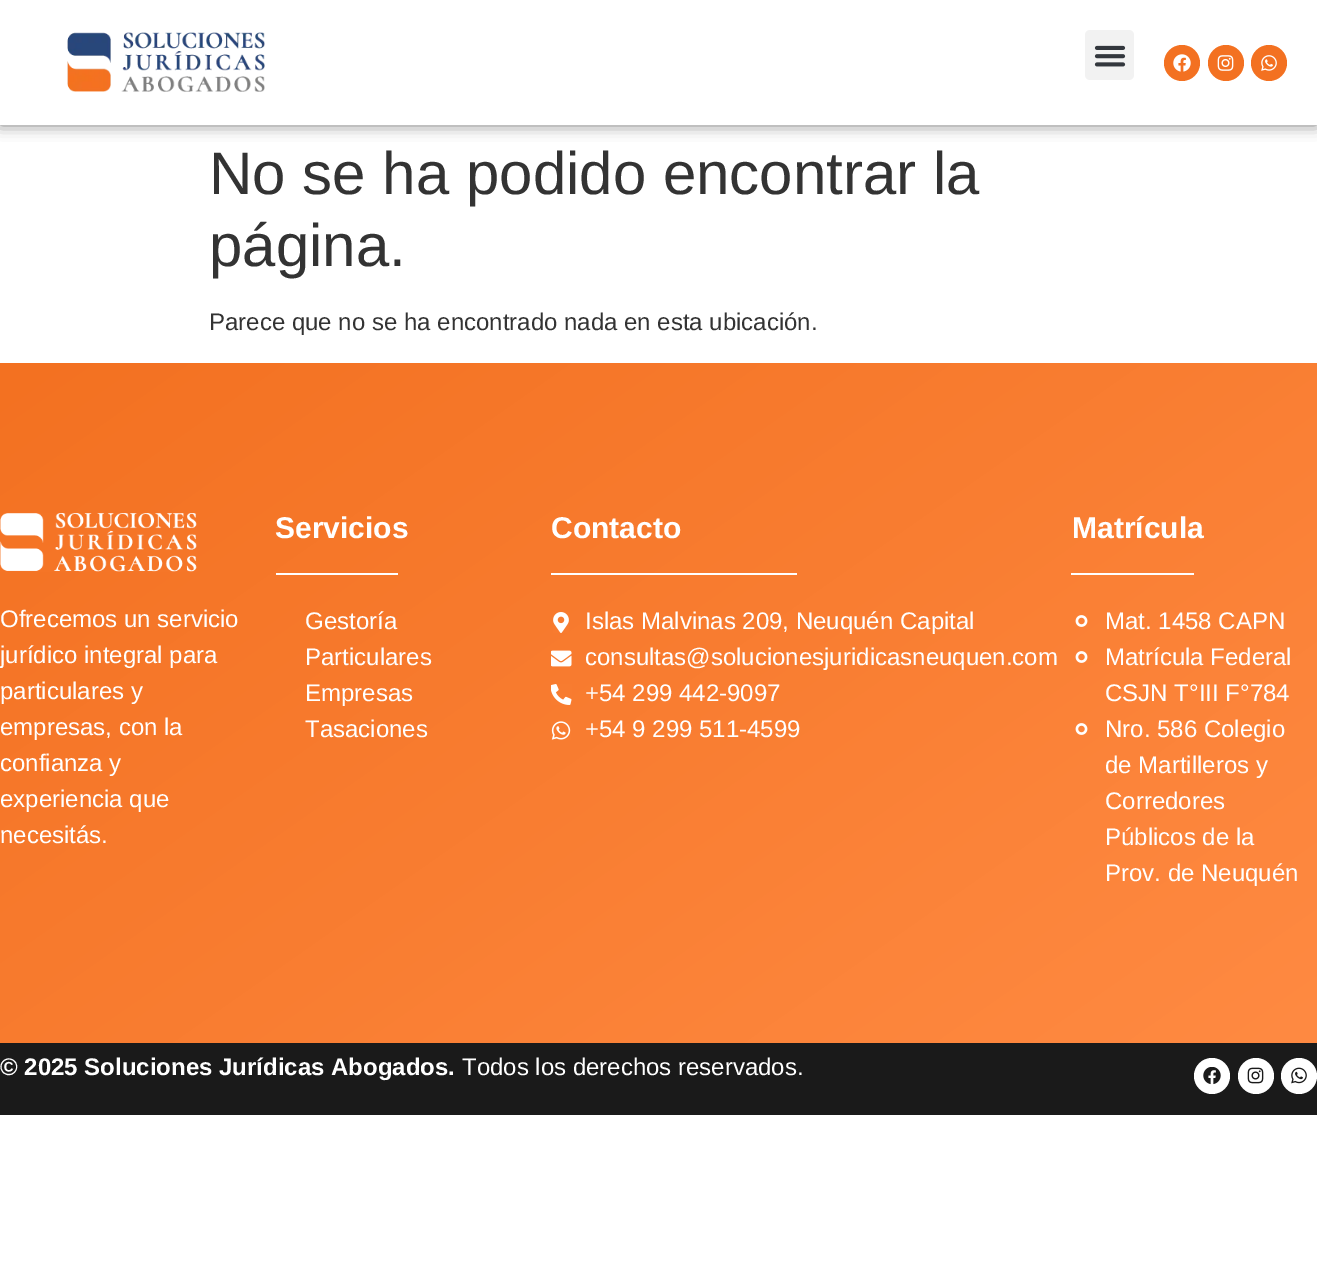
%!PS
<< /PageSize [1317 1273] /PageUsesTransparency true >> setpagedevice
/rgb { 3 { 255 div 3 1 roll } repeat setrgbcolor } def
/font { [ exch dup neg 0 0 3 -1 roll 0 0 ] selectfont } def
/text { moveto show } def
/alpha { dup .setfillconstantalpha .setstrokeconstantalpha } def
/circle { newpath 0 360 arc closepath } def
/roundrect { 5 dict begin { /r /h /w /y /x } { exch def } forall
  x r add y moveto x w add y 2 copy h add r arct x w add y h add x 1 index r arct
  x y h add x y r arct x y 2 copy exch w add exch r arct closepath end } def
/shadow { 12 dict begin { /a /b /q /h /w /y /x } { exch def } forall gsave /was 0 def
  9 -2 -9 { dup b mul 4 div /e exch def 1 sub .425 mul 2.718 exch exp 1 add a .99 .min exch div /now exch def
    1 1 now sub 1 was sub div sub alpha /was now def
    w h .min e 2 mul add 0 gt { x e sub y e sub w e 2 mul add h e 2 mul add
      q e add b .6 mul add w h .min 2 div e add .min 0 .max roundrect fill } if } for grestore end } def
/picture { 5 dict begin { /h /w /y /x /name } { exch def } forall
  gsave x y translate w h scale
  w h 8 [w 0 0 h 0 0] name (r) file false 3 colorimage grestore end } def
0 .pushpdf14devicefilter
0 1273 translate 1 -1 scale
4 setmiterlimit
255 255 255 rgb
0 0 1317 1273 rectfill
0 0 0 rgb
0 0 1317 125 0 7.5 0.5 shadow
255 255 255 rgb
0 0 1317 125 rectfill
(img_01.rgb) 67 32 198 60 picture
242 242 242 rgb
1085 30 49 50 5 roundrect fill
(img_02.rgb) 1094 45 32 22 picture
243 113 33 rgb
1182 63 18 circle fill
(img_03.rgb) 1173 54 18 18 picture
1226 63 18 circle fill
(img_04.rgb) 1217 55 17 16 picture
1269 63 18 circle fill
(img_05.rgb) 1261 55 16 16 picture
gsave 0 363 moveto 1317 0 rlineto 0 680 rlineto -1317 0 rlineto closepath clip newpath
<< /ShadingType 2 /ColorSpace /DeviceRGB /Coords [282 165 1035 1240] /Extend [true true] /Function << /FunctionType 2 /Domain [0 1] /C0 [0.953 0.443 0.129] /C1 [1 0.541 0.259] /N 1 >> >> shfill grestore
(img_06.rgb) 0 513 197 59 picture
255 255 255 rgb
276 573 122 2 rectfill
551 573 246 2 rectfill
(img_07.rgb) 553 612 16 21 picture
(img_08.rgb) 551 650 21 17 picture
(img_09.rgb) 551 684 21 21 picture
(img_10.rgb) 551 721 20 19 picture
1071 573 123 2 rectfill
(img_11.rgb) 1075 615 13 12 picture
(img_12.rgb) 1075 651 13 12 picture
(img_13.rgb) 1075 723 13 12 picture
26 26 26 rgb
0 1043 1317 72 rectfill
255 255 255 rgb
1212 1076 18 circle fill
(img_14.rgb) 1203 1067 18 18 picture
1256 1076 18 circle fill
(img_15.rgb) 1247 1067 17 17 picture
1299 1076 18 circle fill
(img_16.rgb) 1291 1067 16 17 picture
/LiberationSans-Regular 60 font
51 51 51 rgb
(No se ha podido encontrar la) 209 194 text
(página.) 209 266 text
/LiberationSans-Regular 24 font
(Parece que no se ha encontrado nada en esta ubicación.) 209 330 text
255 255 255 rgb
(Ofrecemos un servicio) 0 627 text
(jurídico integral para) 0 663 text
(particulares y) 0 699 text
(empresas, con la) 0 735 text
(confianza y) 0 771 text
(experiencia que) 0 807 text
(necesitás.) 0 843 text
/LiberationSans-Bold 30 font
(Servicios) 275 538 text
/LiberationSans-Regular 24 font
(Gestoría) 305 629 text
(Particulares) 305 665 text
(Empresas) 305 701 text
(Tasaciones) 305 737 text
/LiberationSans-Bold 30 font
(Contacto) 551 538 text
/LiberationSans-Regular 24 font
(Islas Malvinas 209, Neuquén Capital) 585 629 text
(consultas@solucionesjuridicasneuquen.com) 585 665 text
(+54 299 442-9097) 585 701 text
(+54 9 299 511-4599) 585 737 text
/LiberationSans-Bold 30 font
(Matrícula) 1072 538 text
/LiberationSans-Regular 24 font
(Mat. 1458 CAPN) 1105 629 text
(Matrícula Federal) 1105 665 text
(CSJN T°III F°784) 1105 701 text
(Nro. 586 Colegio) 1105 737 text
(de Martilleros y) 1105 773 text
(Corredores) 1105 809 text
(Públicos de la) 1105 845 text
(Prov. de Neuquén) 1105 881 text
/LiberationSans-Bold 24 font
(© 2025 Soluciones Jurídicas Abogados.) 0 1075 text
/LiberationSans-Regular 24 font
(Todos los derechos reservados.) 462 1075 text
.poppdf14devicefilter showpage
